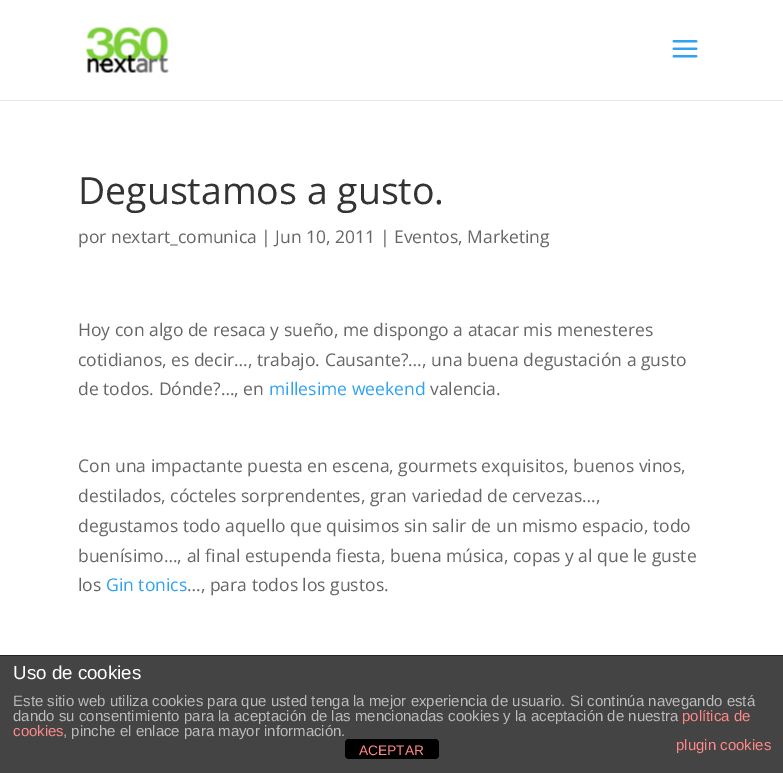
%!PS
<< /PageSize [783 773] >> setpagedevice
/rgb { 3 { 255 div 3 1 roll } repeat setrgbcolor } def
/font { [ exch dup neg 0 0 3 -1 roll 0 0 ] selectfont } def
/text { moveto show } def
/roundrect { 5 dict begin { /r /h /w /y /x } { exch def } forall
  x r add y moveto x w add y 2 copy h add r arct x w add y h add x 1 index r arct
  x y h add x y r arct x y 2 copy exch w add exch r arct closepath end } def
/picture { 5 dict begin { /h /w /y /x /name } { exch def } forall
  gsave x y translate w h scale
  w h 8 [w 0 0 h 0 0] name (r) file false 3 colorimage grestore end } def
0 773 translate 1 -1 scale
4 setmiterlimit
255 255 255 rgb
0 0 783 773 rectfill
230 230 230 rgb
0 100 moveto 0 1 rlineto 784 0 rlineto 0 -100 rlineto 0 99 rlineto closepath fill
(img_01.rgb) 86 27 83 46 picture
(img_02.rgb) 672 40 26 18 picture
68 68 68 rgb
0 656 783 117 rectfill
34 34 34 rgb
0 655 783 1 rectfill
0 0 0 rgb
345 739 94 20 4 roundrect fill
/OpenSans-Regular 37.5 font
51 51 51 rgb
(Degustamos a gusto.) 78 204 text
/OpenSans-Regular 17.5 font
102 102 102 rgb
(por nextart_comunica | Jun 10, 2011 | Eventos, Marketing) 78 243 text
(Hoy con algo de resaca y sueño, me dispongo a atacar mis menesteres) 78 336 text
(cotidianos, es decir…, trabajo. Causante?…, una buena degustación a gusto) 78 366 text
(de todos. Dónde?…, en) 78 395 text
46 163 242 rgb
(millesime weekend) 269 395 text
102 102 102 rgb
(valencia.) 430 395 text
(Con una impactante puesta en escena, gourmets exquisitos, buenos vinos,) 78 472 text
(destilados, cócteles sorprendentes, gran variedad de cervezas…,) 78 502 text
(degustamos todo aquello que quisimos sin salir de un mismo espacio, todo) 78 532 text
(buenísimo…, al final estupenda fiesta, buena música, copas y al que le guste) 78 562 text
(los) 78 591 text
46 163 242 rgb
(Gin tonics) 106 591 text
102 102 102 rgb
(…, para todos los gustos.) 187 591 text
/LiberationSans-Regular 18.75 font
255 255 255 rgb
(Uso de cookies) 13 679 text
/LiberationSans-Regular 15 font
187 187 187 rgb
(Este sitio web utiliza cookies para que usted tenga la mejor experiencia de usuario. Si continúa navegando está) 13 706 text
(dando su consentimiento para la aceptación de las mencionadas cookies y la aceptación de nuestra) 13 721 text
255 136 136 rgb
(política de) 682 721 text
(cookies) 13 736 text
187 187 187 rgb
(, pinche el enlace para mayor información.) 63 736 text
255 136 136 rgb
(plugin cookies) 676 750 text
/LiberationSans-Regular 13.75 font
(ACEPTAR) 359 755 text
showpage
